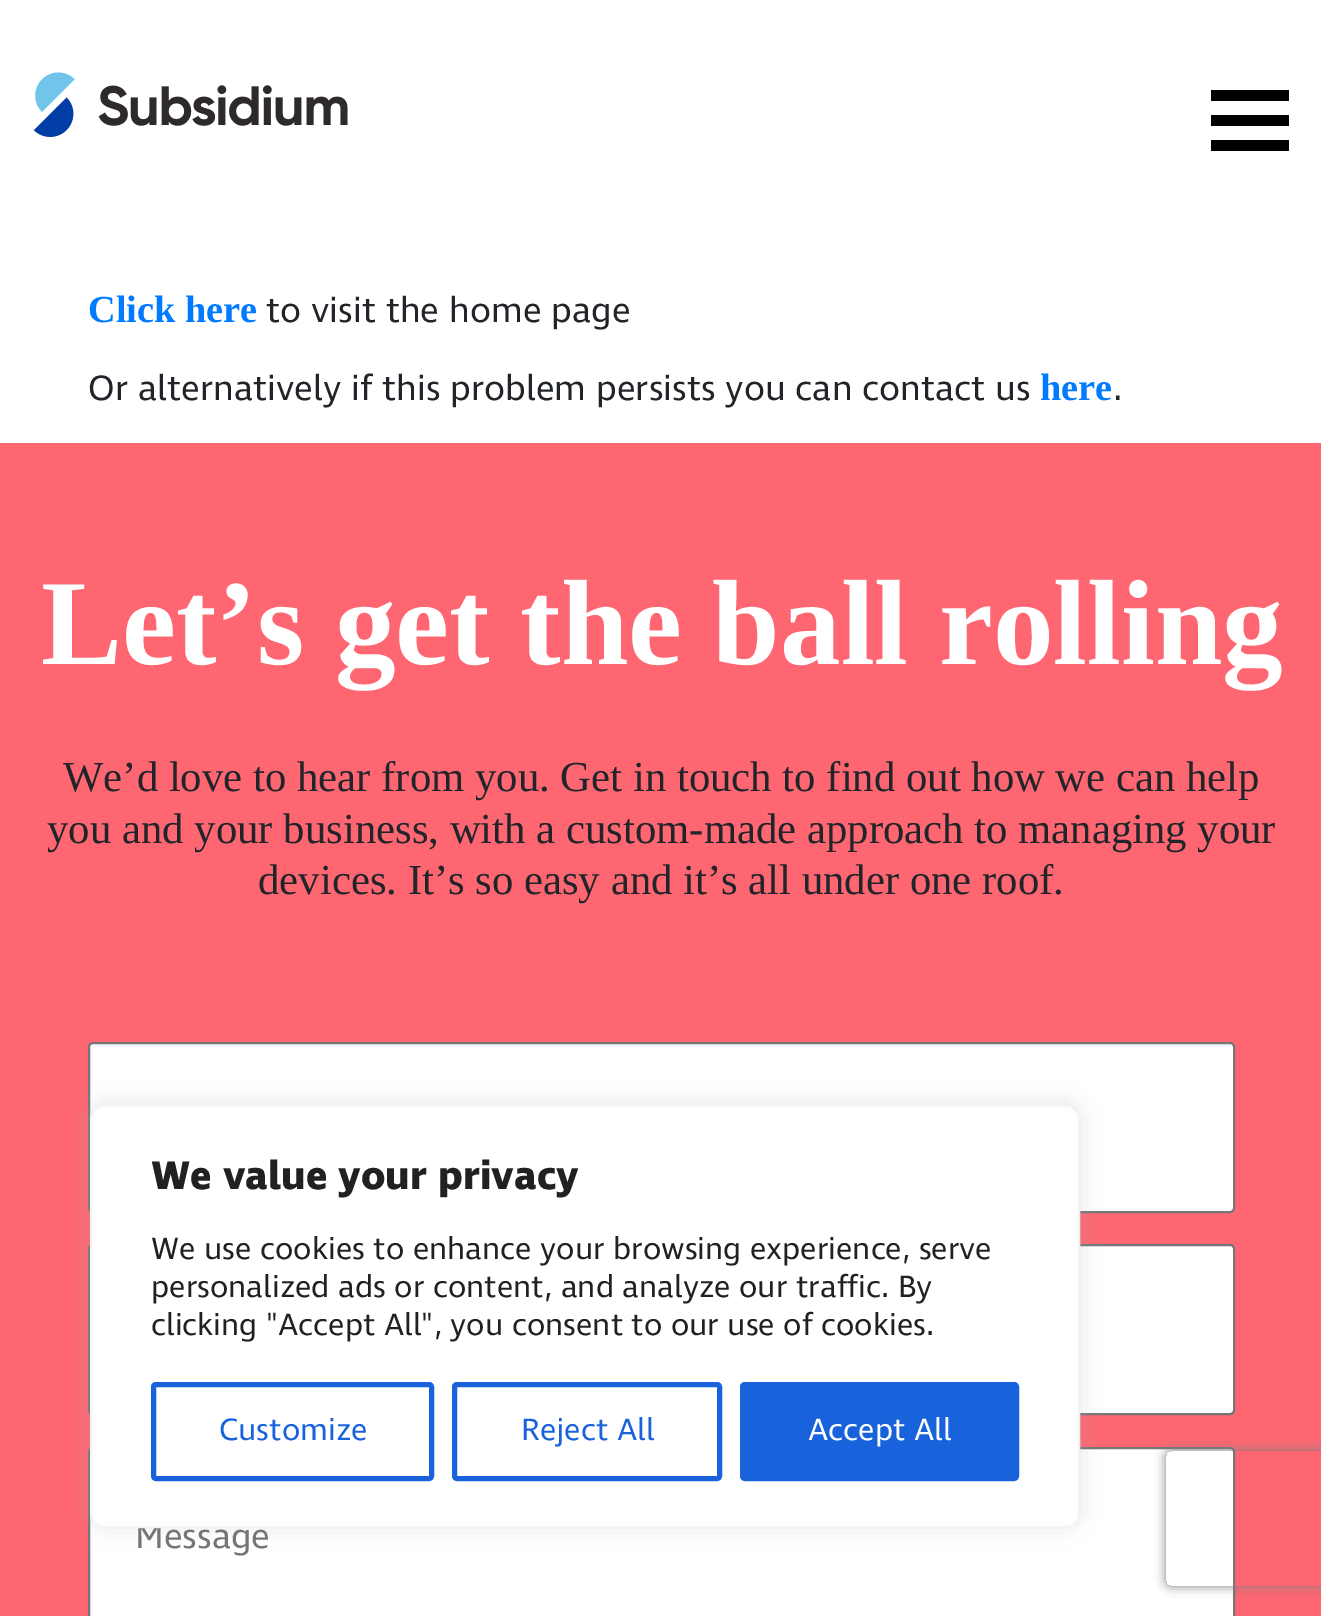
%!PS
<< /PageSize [1321 1616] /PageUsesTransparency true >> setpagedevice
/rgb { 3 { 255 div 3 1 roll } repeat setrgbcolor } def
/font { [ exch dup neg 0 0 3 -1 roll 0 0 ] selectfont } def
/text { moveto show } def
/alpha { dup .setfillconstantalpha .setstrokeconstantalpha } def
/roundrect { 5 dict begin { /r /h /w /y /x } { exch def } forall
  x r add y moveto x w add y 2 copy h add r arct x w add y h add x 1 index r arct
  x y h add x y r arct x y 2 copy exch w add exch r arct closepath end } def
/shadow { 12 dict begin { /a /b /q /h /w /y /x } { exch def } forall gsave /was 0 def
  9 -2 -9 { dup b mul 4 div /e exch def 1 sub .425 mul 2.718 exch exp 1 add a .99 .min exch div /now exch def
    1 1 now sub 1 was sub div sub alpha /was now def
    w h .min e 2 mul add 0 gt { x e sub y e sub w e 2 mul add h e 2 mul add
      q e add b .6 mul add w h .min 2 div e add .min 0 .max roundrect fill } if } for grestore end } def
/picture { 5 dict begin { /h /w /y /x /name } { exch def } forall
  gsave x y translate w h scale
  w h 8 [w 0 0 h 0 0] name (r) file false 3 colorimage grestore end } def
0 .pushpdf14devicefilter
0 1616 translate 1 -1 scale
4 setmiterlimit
255 255 255 rgb
0 0 1321 1616 rectfill
(img_01.rgb) 34 72 314 65 picture
0 0 0 rgb
1211 90 78 11 rectfill
1211 115 78 11 rectfill
1211 140 78 11 rectfill
254 102 114 rgb
0 443 1321 1173 rectfill
255 255 255 rgb
89 1043 1145 169 4 roundrect gsave fill grestore
118 118 118 rgb
2 setlinewidth
stroke
255 255 255 rgb
89 1245 1145 169 4 roundrect gsave fill grestore
118 118 118 rgb
stroke
255 255 255 rgb
89 1448 1145 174 4 roundrect gsave fill grestore
118 118 118 rgb
stroke
172 171 171 rgb
90 1103 990 423 14 11 0.3 shadow
gsave
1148 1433 moveto 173 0 rlineto 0 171 rlineto -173 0 rlineto closepath 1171 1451 moveto 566 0 rlineto 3 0 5 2 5 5 rcurveto 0 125 rlineto 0 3 -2 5 -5 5 rcurveto -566 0 rlineto -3 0 -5 -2 -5 -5 rcurveto 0 -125 rlineto 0 -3 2 -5 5 -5 rcurveto closepath eoclip newpath
128 128 128 rgb
1166 1451 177 135 5 5.5 1 shadow
grestore
/LiberationSerif-Bold 38.25 font
0 123 255 rgb
(Click here) 88 322 text
/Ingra-Regular 36 font
33 37 41 rgb
(to visit the home page) 266 322 text
(Or alternatively if this problem persists you can contact us) 88 400 text
/LiberationSerif-Bold 38.25 font
0 123 255 rgb
(here) 1040 400 text
/Ingra-Regular 36 font
33 37 41 rgb
(.) 1113 400 text
/LiberationSerif-Bold 121.5 font
255 255 255 rgb
(Let’s get the ball rolling) 41 664 text
/LiberationSerif-Regular 42.75 font
33 37 41 rgb
(We’d love to hear from you. Get in touch to find out how we can help) 63 791 text
(you and your business, with a custom-made approach to managing your) 47 843 text
(devices. It’s so easy and it’s all under one roof.) 258 894 text
/Ingra-Regular 36 font
117 117 117 rgb
(Message) 135 1548 text
255 255 255 rgb
91 1106 988 421 13 roundrect gsave fill grestore
244 244 244 rgb
stroke
/Ingra-Bold 40.5 font
33 33 33 rgb
(We value your privacy) 151 1189 text
/Ingra-Regular 31.5 font
(We use cookies to enhance your browsing experience, serve) 151 1259 text
(personalized ads or content, and analyze our traffic. By) 151 1297 text
(clicking "Accept All", you consent to our use of cookies.) 151 1335 text
24 99 220 rgb
5 setlinewidth
153.5 1384.5 278 94 2.5 roundrect stroke
(Customize) 219 1440 text
454.5 1384.5 265 94 2.5 roundrect stroke
(Reject All) 521 1440 text
742.5 1384.5 274 94 2.5 roundrect gsave fill grestore
stroke
255 255 255 rgb
(Accept All) 808 1440 text
.poppdf14devicefilter showpage
